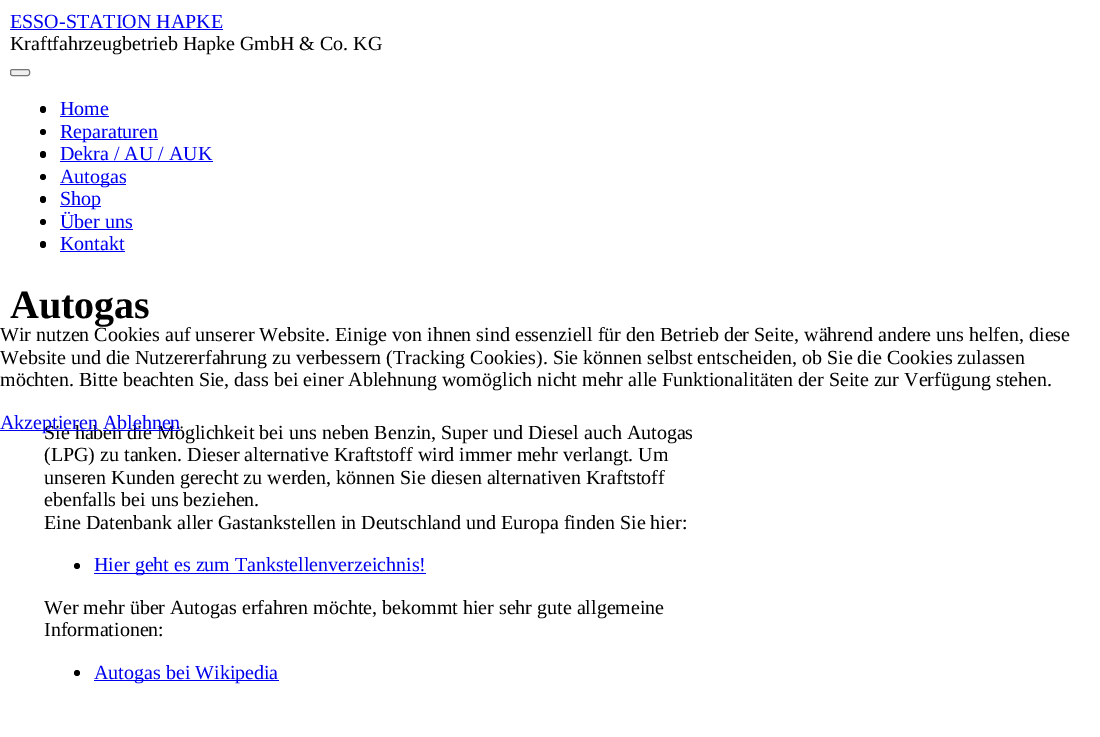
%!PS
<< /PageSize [1100 737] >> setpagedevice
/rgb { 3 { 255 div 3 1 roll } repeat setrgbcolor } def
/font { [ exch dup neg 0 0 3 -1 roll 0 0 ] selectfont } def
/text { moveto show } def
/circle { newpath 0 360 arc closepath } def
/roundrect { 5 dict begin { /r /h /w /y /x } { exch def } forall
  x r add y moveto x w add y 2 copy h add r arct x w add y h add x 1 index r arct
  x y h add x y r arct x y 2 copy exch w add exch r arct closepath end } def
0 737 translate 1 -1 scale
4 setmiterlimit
255 255 255 rgb
0 0 1100 737 rectfill
0 0 238 rgb
10 29 213 1 rectfill
239 239 239 rgb
10.5 69.5 19 6 2 roundrect gsave fill grestore
118 118 118 rgb
stroke
0 0 0 rgb
40 106 6 7 3 roundrect fill
0 0 238 rgb
60 116 49 1 rectfill
0 0 0 rgb
43 132 3 circle fill
0 0 238 rgb
60 139 98 1 rectfill
0 0 0 rgb
40 151 6 7 3 roundrect fill
0 0 238 rgb
60 161 153 1 rectfill
0 0 0 rgb
43 177 3 circle fill
0 0 238 rgb
60 184 66 1 rectfill
0 0 0 rgb
40 196 6 7 3 roundrect fill
0 0 238 rgb
60 206 41 1 rectfill
0 0 0 rgb
43 222 3 circle fill
0 0 238 rgb
60 229 73 1 rectfill
0 0 0 rgb
40 241 6 7 3 roundrect fill
0 0 238 rgb
60 251 65 1 rectfill
0 0 0 rgb
77 566 3 circle fill
0 0 238 rgb
94 573 332 1 rectfill
0 0 0 rgb
77 673 3 circle fill
0 0 238 rgb
94 680 185 1 rectfill
/LiberationSerif-Regular 20 font
(ESSO-STATION HAPKE) 10 28 text
0 0 0 rgb
(Kraftfahrzeugbetrieb Hapke GmbH & Co. KG) 10 50 text
0 0 238 rgb
(Home) 60 115 text
(Reparaturen) 60 138 text
(Dekra / AU / AUK) 60 160 text
(Autogas) 60 183 text
(Shop) 60 205 text
(Über uns) 60 228 text
(Kontakt) 60 250 text
/LiberationSerif-Bold 40 font
0 0 0 rgb
(Autogas) 10 318 text
/LiberationSerif-Regular 20 font
(Sie haben die Möglichkeit bei uns neben Benzin, Super und Diesel auch Autogas) 44 439 text
(\(LPG\) zu tanken. Dieser alternative Kraftstoff wird immer mehr verlangt. Um) 44 461 text
(unseren Kunden gerecht zu werden, können Sie diesen alternativen Kraftstoff) 44 484 text
(ebenfalls bei uns beziehen.) 44 506 text
(Eine Datenbank aller Gastankstellen in Deutschland und Europa finden Sie hier:) 44 529 text
0 0 238 rgb
(Hier geht es zum Tankstellenverzeichnis!) 94 571 text
0 0 0 rgb
(Wer mehr über Autogas erfahren möchte, bekommt hier sehr gute allgemeine) 44 614 text
(Informationen:) 44 636 text
0 0 238 rgb
(Autogas bei Wikipedia) 94 679 text
0 0 0 rgb
(Wir nutzen Cookies auf unserer Website. Einige von ihnen sind essenziell für den Betrieb der Seite, während andere uns helfen, diese) 0 341 text
(Website und die Nutzererfahrung zu verbessern \(Tracking Cookies\). Sie können selbst entscheiden, ob Sie die Cookies zulassen) 0 364 text
(möchten. Bitte beachten Sie, dass bei einer Ablehnung womöglich nicht mehr alle Funktionalitäten der Seite zur Verfügung stehen.) 0 386 text
0 0 238 rgb
0 430 98 1 rectfill
(Akzeptieren Ablehnen) 0 429 text
103 430 77 1 rectfill
showpage
